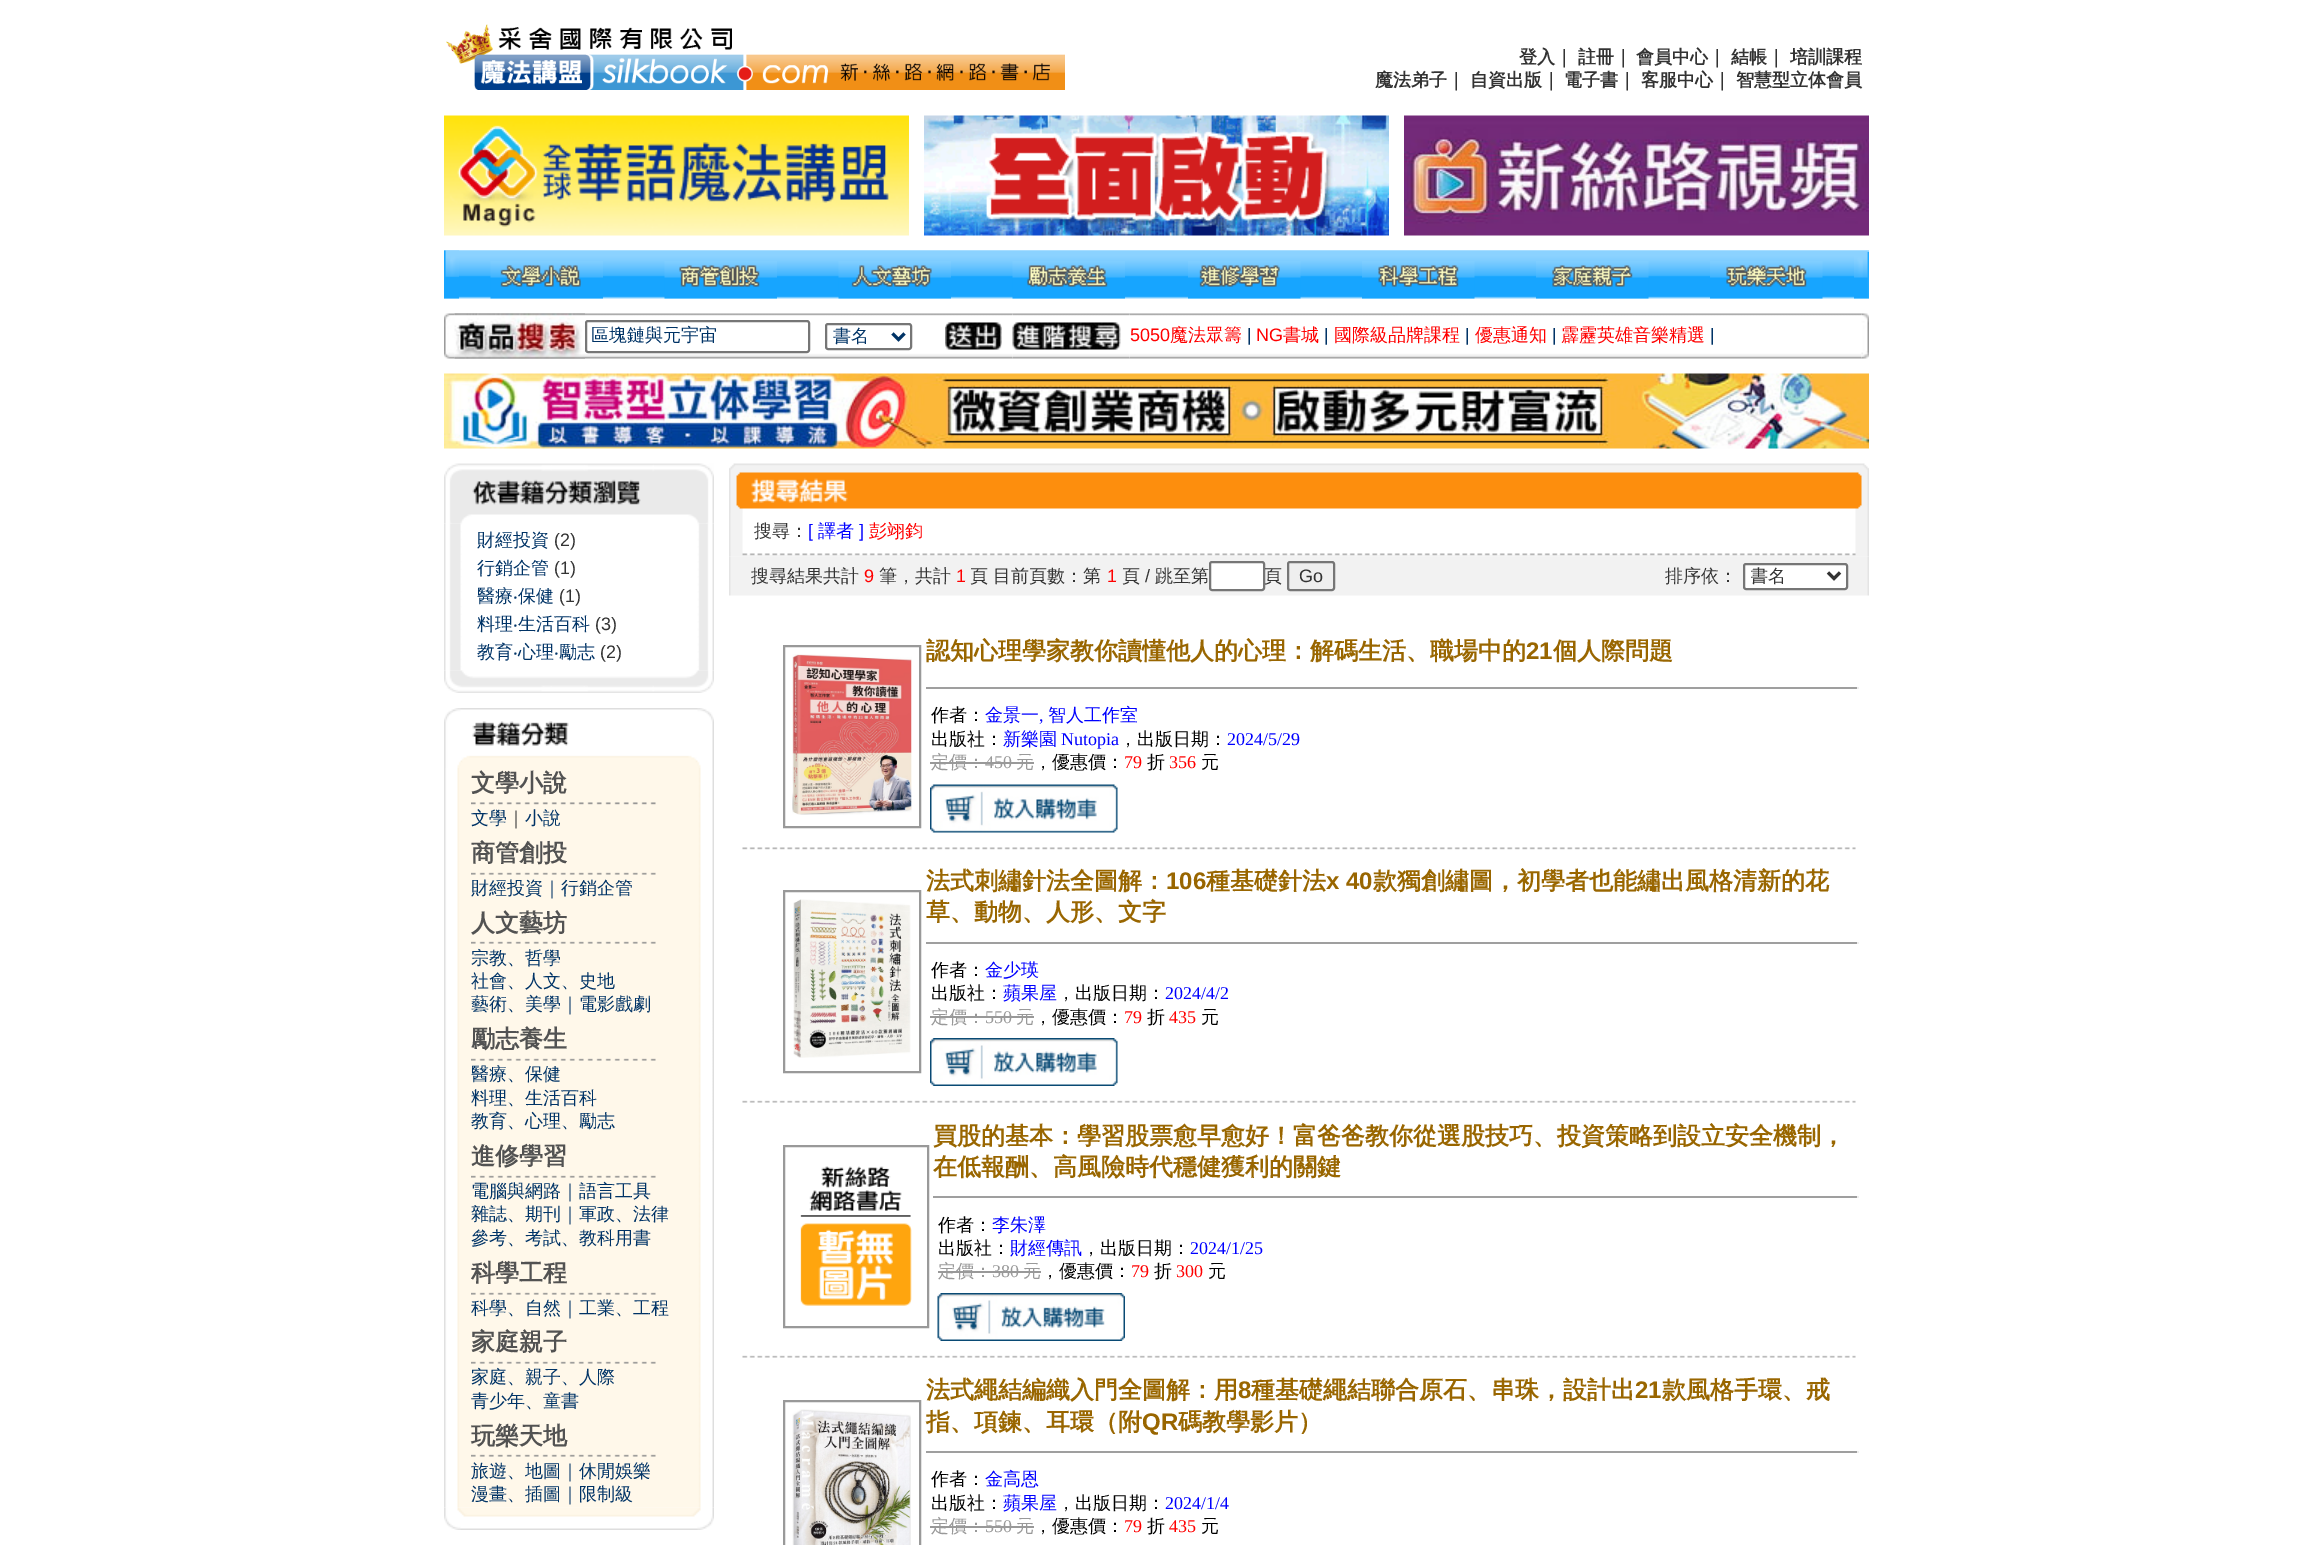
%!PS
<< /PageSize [2313 1545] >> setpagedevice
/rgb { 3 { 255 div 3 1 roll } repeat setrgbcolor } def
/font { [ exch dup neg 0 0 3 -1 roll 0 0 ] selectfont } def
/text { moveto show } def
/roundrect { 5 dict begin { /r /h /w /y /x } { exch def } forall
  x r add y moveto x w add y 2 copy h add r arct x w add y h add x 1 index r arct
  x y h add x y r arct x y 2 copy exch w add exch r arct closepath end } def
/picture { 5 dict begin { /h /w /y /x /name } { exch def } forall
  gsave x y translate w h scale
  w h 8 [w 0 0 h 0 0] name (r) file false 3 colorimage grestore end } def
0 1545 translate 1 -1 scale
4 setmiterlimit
255 255 255 rgb
0 0 2313 1545 rectfill
(img_01.rgb) 446 24 619 66 picture
(img_02.rgb) 444 115 465 121 picture
(img_03.rgb) 924 115 465 121 picture
(img_04.rgb) 1404 115 465 121 picture
(img_05.rgb) 444 250 1425 49 picture
(img_06.rgb) 444 250 15 49 picture
(img_07.rgb) 490 261 113 38 picture
(img_08.rgb) 664 261 113 38 picture
(img_09.rgb) 838 261 113 38 picture
(img_10.rgb) 1012 261 113 38 picture
(img_11.rgb) 1188 261 113 38 picture
(img_12.rgb) 1362 261 113 38 picture
(img_13.rgb) 1536 261 113 38 picture
(img_14.rgb) 1710 261 113 38 picture
(img_15.rgb) 1854 252 15 47 picture
(img_17.rgb) 454 313 131 46 picture
(img_16.rgb) 444 313 11 46 picture
(img_18.rgb) 454 313 131 46 picture
(img_19.rgb) 585 313 240 46 picture
118 118 118 rgb
2 setlinewidth
586 321 223 31 2 roundrect stroke
(img_20.rgb) 825 313 120 46 picture
826 324 85 25 2 roundrect stroke
0 51 102 rgb
3 setlinewidth
892.5 333.5 moveto 6 6 rlineto 6 -6 rlineto stroke
(img_21.rgb) 945 313 68 46 picture
(img_22.rgb) 945 322 57 28 picture
(img_23.rgb) 1012 313 118 46 picture
(img_24.rgb) 1012 322 109 28 picture
(img_25.rgb) 1129 313 733 46 picture
(img_26.rgb) 1861 313 8 46 picture
(img_27.rgb) 444 373 1425 76 picture
(img_29.rgb) 444 523 270 148 picture
(img_28.rgb) 444 463 270 61 picture
(img_30.rgb) 444 670 270 23 picture
(img_31.rgb) 444 708 270 60 picture
(img_32.rgb) 444 768 270 740 picture
(img_33.rgb) 471 802 185 3 picture
(img_34.rgb) 471 872 185 3 picture
(img_34.rgb) 471 941 185 3 picture
(img_34.rgb) 471 1058 185 3 picture
(img_34.rgb) 471 1175 185 3 picture
(img_34.rgb) 471 1292 185 3 picture
(img_34.rgb) 471 1361 185 3 picture
(img_34.rgb) 471 1454 185 3 picture
(img_35.rgb) 444 1507 270 23 picture
(img_36.rgb) 729 463 1140 50 picture
(img_37.rgb) 729 513 1140 39 picture
(img_39.rgb) 729 556 1140 40 picture
(img_38.rgb) 729 552 1140 5 picture
255 255 255 rgb
1210 562 54 28 2 roundrect gsave fill grestore
118 118 118 rgb
2 setlinewidth
stroke
239 239 239 rgb
1288 562 46 28 2 roundrect gsave fill grestore
118 118 118 rgb
stroke
255 255 255 rgb
1744 564 103 25 2 roundrect gsave fill grestore
118 118 118 rgb
stroke
51 51 51 rgb
3 setlinewidth
1828 572.5 moveto 6 6 rlineto 6 -6 rlineto stroke
153 153 153 rgb
2 setlinewidth
784 646 136 181 rectstroke
(img_40.rgb) 792 654 120 161 picture
159 159 159 rgb
926 687 933 2 rectfill
238 238 238 rgb
1857 687 2 2 rectfill
153 153 153 rgb
930 762 104 2 rectfill
(img_41.rgb) 930 784 188 49 picture
(img_42.rgb) 742 847 1114 3 picture
784 891 136 181 rectstroke
(img_43.rgb) 793 899 118 159 picture
159 159 159 rgb
926 942 933 2 rectfill
238 238 238 rgb
1857 942 2 2 rectfill
153 153 153 rgb
930 1016 104 2 rectfill
(img_44.rgb) 930 1038 188 48 picture
(img_45.rgb) 742 1100 1114 3 picture
784 1146 144 181 rectstroke
(img_46.rgb) 800 1166 112 140 picture
159 159 159 rgb
933 1196 926 2 rectfill
238 238 238 rgb
1857 1196 2 2 rectfill
153 153 153 rgb
938 1271 103 2 rectfill
(img_47.rgb) 937 1293 188 48 picture
(img_45.rgb) 742 1355 1114 3 picture
784 1401 136 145 rectstroke
(img_48.rgb) 792 1409 119 136 picture
159 159 159 rgb
926 1451 933 2 rectfill
238 238 238 rgb
1857 1451 2 2 rectfill
153 153 153 rgb
930 1526 104 2 rectfill
/WenQuanYiZenHei-Bold 18 font
51 51 51 rgb
(登入｜) 1519 63 text
(註冊｜) 1578 63 text
(會員中心｜) 1636 63 text
(結帳｜) 1731 63 text
(培訓課程) 1790 63 text
(魔法弟子｜) 1375 86 text
(自資出版｜) 1470 86 text
(電子書｜) 1564 86 text
(客服中心｜) 1641 86 text
(智慧型立体會員) 1736 86 text
/WenQuanYiZenHei-Medium 18 font
0 51 102 rgb
(區塊鏈與元宇宙) 591 341 text
(書名) 833 342 text
/LiberationSans-Regular 18 font
255 0 0 rgb
(5050) 1130 341 text
/WenQuanYiZenHei-Medium 18 font
(魔法眾籌) 1170 341 text
/LiberationSans-Regular 18 font
0 51 102 rgb
(|) 1247 341 text
255 0 0 rgb
(NG) 1256 341 text
/WenQuanYiZenHei-Medium 18 font
(書城) 1283 341 text
/LiberationSans-Regular 18 font
0 51 102 rgb
(|) 1324 341 text
/WenQuanYiZenHei-Medium 18 font
255 0 0 rgb
(國際級品牌課程) 1334 341 text
/LiberationSans-Regular 18 font
0 51 102 rgb
(|) 1465 341 text
/WenQuanYiZenHei-Medium 18 font
255 0 0 rgb
(優惠通知) 1475 341 text
/LiberationSans-Regular 18 font
0 51 102 rgb
(|) 1552 341 text
/WenQuanYiZenHei-Medium 18 font
255 0 0 rgb
(霹靂英雄音樂精選) 1561 341 text
/LiberationSans-Regular 18 font
0 51 102 rgb
(|) 1710 341 text
/WenQuanYiZenHei-Medium 18 font
(財經投資) 477 546 text
/LiberationSans-Regular 18 font
51 51 51 rgb
(\(2\)) 554 546 text
/WenQuanYiZenHei-Medium 18 font
0 51 102 rgb
(行銷企管) 477 574 text
/LiberationSans-Regular 18 font
51 51 51 rgb
(\(1\)) 554 574 text
/WenQuanYiZenHei-Medium 18 font
0 51 102 rgb
(醫療) 477 602 text
/NotoSans-Regular 18 font
(‧) 513 602 text
/WenQuanYiZenHei-Medium 18 font
(保健) 518 602 text
/LiberationSans-Regular 18 font
51 51 51 rgb
(\(1\)) 559 602 text
/WenQuanYiZenHei-Medium 18 font
0 51 102 rgb
(料理) 477 630 text
/NotoSans-Regular 18 font
(‧) 513 630 text
/WenQuanYiZenHei-Medium 18 font
(生活百科) 518 630 text
/LiberationSans-Regular 18 font
51 51 51 rgb
(\(3\)) 595 630 text
/WenQuanYiZenHei-Medium 18 font
0 51 102 rgb
(教育) 477 658 text
/NotoSans-Regular 18 font
(‧) 513 658 text
/WenQuanYiZenHei-Medium 18 font
(心理) 518 658 text
/NotoSans-Regular 18 font
(‧) 554 658 text
/WenQuanYiZenHei-Medium 18 font
(勵志) 559 658 text
/LiberationSans-Regular 18 font
51 51 51 rgb
(\(2\)) 600 658 text
/WenQuanYiZenHei-Bold 24 font
82 82 82 rgb
(文學小說) 471 791 text
/WenQuanYiZenHei-Medium 18 font
0 51 102 rgb
(文學) 471 824 text
51 51 51 rgb
(｜) 507 824 text
0 51 102 rgb
(小說) 525 824 text
/WenQuanYiZenHei-Bold 24 font
82 82 82 rgb
(商管創投) 471 861 text
/WenQuanYiZenHei-Medium 18 font
0 51 102 rgb
(財經投資｜行銷企管) 471 894 text
/WenQuanYiZenHei-Bold 24 font
82 82 82 rgb
(人文藝坊) 471 931 text
/WenQuanYiZenHei-Medium 18 font
0 51 102 rgb
(宗教、哲學) 471 964 text
(社會、人文、史地) 471 987 text
(藝術、美學｜電影戲劇) 471 1010 text
/WenQuanYiZenHei-Bold 24 font
82 82 82 rgb
(勵志養生) 471 1047 text
/WenQuanYiZenHei-Medium 18 font
0 51 102 rgb
(醫療、保健) 471 1080 text
(料理、生活百科) 471 1104 text
(教育、心理、勵志) 471 1127 text
/WenQuanYiZenHei-Bold 24 font
82 82 82 rgb
(進修學習) 471 1164 text
/WenQuanYiZenHei-Medium 18 font
0 51 102 rgb
(電腦與網路｜語言工具) 471 1197 text
(雜誌、期刊｜軍政、法律) 471 1220 text
(參考、考試、教科用書) 471 1244 text
/WenQuanYiZenHei-Bold 24 font
82 82 82 rgb
(科學工程) 471 1281 text
/WenQuanYiZenHei-Medium 18 font
0 51 102 rgb
(科學、自然｜工業、工程) 471 1314 text
/WenQuanYiZenHei-Bold 24 font
82 82 82 rgb
(家庭親子) 471 1350 text
/WenQuanYiZenHei-Medium 18 font
0 51 102 rgb
(家庭、親子、人際) 471 1383 text
(青少年、童書) 471 1407 text
/WenQuanYiZenHei-Bold 24 font
82 82 82 rgb
(玩樂天地) 471 1444 text
/WenQuanYiZenHei-Medium 18 font
0 51 102 rgb
(旅遊、地圖｜休閒娛樂) 471 1477 text
(漫畫、插圖｜限制級) 471 1500 text
51 51 51 rgb
(搜尋：) 754 537 text
/LiberationSans-Regular 18 font
0 0 255 rgb
([) 808 537 text
/WenQuanYiZenHei-Medium 18 font
(譯者) 818 537 text
/LiberationSans-Regular 18 font
(]) 859 537 text
/WenQuanYiZenHei-Medium 18 font
255 0 0 rgb
(彭翊鈞) 869 537 text
51 51 51 rgb
(搜尋結果共計) 751 582 text
/LiberationSans-Regular 18 font
255 0 0 rgb
(9) 864 582 text
/WenQuanYiZenHei-Medium 18 font
51 51 51 rgb
(筆，共計) 879 582 text
/LiberationSans-Regular 18 font
255 0 0 rgb
(1) 956 582 text
/WenQuanYiZenHei-Medium 18 font
51 51 51 rgb
(頁 目前頁數：第) 970 582 text
/LiberationSans-Regular 18 font
255 0 0 rgb
(1) 1107 582 text
/WenQuanYiZenHei-Medium 18 font
51 51 51 rgb
(頁) 1122 582 text
/LiberationSans-Regular 18 font
(/) 1145 582 text
/WenQuanYiZenHei-Medium 18 font
(跳至第) 1155 582 text
(頁) 1264 582 text
/LiberationSans-Regular 18 font
(Go) 1299 582 text
/WenQuanYiZenHei-Medium 18 font
(排序依：) 1665 582 text
gsave
1751 564 72 24 rectclip
(書名) 1750 582 text
grestore
/WenQuanYiZenHei-Bold 24 font
153 102 0 rgb
(認知心理學家教你讀懂他人的心理：解碼生活、職場中的) 926 659 text
/LiberationSans-Bold 24 font
(21) 1526 659 text
/WenQuanYiZenHei-Bold 24 font
(個人際問題) 1553 659 text
/WenQuanYiZenHei-Medium 18 font
0 0 0 rgb
(作者：) 931 721 text
0 0 255 rgb
(金景一) 985 721 text
/LiberationSerif-Regular 18 font
(,) 1039 721 text
/WenQuanYiZenHei-Medium 18 font
(智人工作室) 1048 721 text
0 0 0 rgb
(出版社：) 931 745 text
0 0 255 rgb
(新樂園) 1003 745 text
/LiberationSerif-Regular 18 font
(Nutopia) 1061 745 text
/WenQuanYiZenHei-Medium 18 font
0 0 0 rgb
(，出版日期：) 1119 745 text
/LiberationSerif-Regular 18 font
0 0 255 rgb
(2024/5/29) 1227 745 text
/WenQuanYiZenHei-Medium 18 font
153 153 153 rgb
(定價：) 931 768 text
/LiberationSerif-Regular 18 font
(450) 985 768 text
/WenQuanYiZenHei-Medium 18 font
(元) 1016 768 text
0 0 0 rgb
(，優惠價：) 1034 768 text
/LiberationSerif-Regular 18 font
255 0 0 rgb
(79) 1124 768 text
/WenQuanYiZenHei-Medium 18 font
0 0 0 rgb
(折) 1147 768 text
/LiberationSerif-Regular 18 font
255 0 0 rgb
(356) 1169 768 text
/WenQuanYiZenHei-Medium 18 font
0 0 0 rgb
(元) 1201 768 text
/WenQuanYiZenHei-Bold 24 font
153 102 0 rgb
(法式刺繡針法全圖解：) 926 889 text
/LiberationSans-Bold 24 font
(106) 1166 889 text
/WenQuanYiZenHei-Bold 24 font
(種基礎針法) 1206 889 text
/LiberationSans-Bold 24 font
(x 40) 1326 889 text
/WenQuanYiZenHei-Bold 24 font
(款獨創繡圖，初學者也能繡出風格清新的花) 1373 889 text
(草、動物、人形、文字) 926 920 text
/WenQuanYiZenHei-Medium 18 font
0 0 0 rgb
(作者：) 931 976 text
0 0 255 rgb
(金少瑛) 985 976 text
0 0 0 rgb
(出版社：) 931 999 text
0 0 255 rgb
(蘋果屋) 1003 999 text
0 0 0 rgb
(，出版日期：) 1057 999 text
/LiberationSerif-Regular 18 font
0 0 255 rgb
(2024/4/2) 1165 999 text
/WenQuanYiZenHei-Medium 18 font
153 153 153 rgb
(定價：) 931 1023 text
/LiberationSerif-Regular 18 font
(550) 985 1023 text
/WenQuanYiZenHei-Medium 18 font
(元) 1016 1023 text
0 0 0 rgb
(，優惠價：) 1034 1023 text
/LiberationSerif-Regular 18 font
255 0 0 rgb
(79) 1124 1023 text
/WenQuanYiZenHei-Medium 18 font
0 0 0 rgb
(折) 1147 1023 text
/LiberationSerif-Regular 18 font
255 0 0 rgb
(435) 1169 1023 text
/WenQuanYiZenHei-Medium 18 font
0 0 0 rgb
(元) 1201 1023 text
/WenQuanYiZenHei-Bold 24 font
153 102 0 rgb
(買股的基本：學習股票愈早愈好！富爸爸教你從選股技巧、投資策略到設立安全機制，) 933 1144 text
(在低報酬、高風險時代穩健獲利的關鍵) 933 1175 text
/WenQuanYiZenHei-Medium 18 font
0 0 0 rgb
(作者：) 938 1231 text
0 0 255 rgb
(李朱澤) 992 1231 text
0 0 0 rgb
(出版社：) 938 1254 text
0 0 255 rgb
(財經傳訊) 1010 1254 text
0 0 0 rgb
(，出版日期：) 1082 1254 text
/LiberationSerif-Regular 18 font
0 0 255 rgb
(2024/1/25) 1190 1254 text
/WenQuanYiZenHei-Medium 18 font
153 153 153 rgb
(定價：) 938 1277 text
/LiberationSerif-Regular 18 font
(380) 992 1277 text
/WenQuanYiZenHei-Medium 18 font
(元) 1023 1277 text
0 0 0 rgb
(，優惠價：) 1041 1277 text
/LiberationSerif-Regular 18 font
255 0 0 rgb
(79) 1131 1277 text
/WenQuanYiZenHei-Medium 18 font
0 0 0 rgb
(折) 1154 1277 text
/LiberationSerif-Regular 18 font
255 0 0 rgb
(300) 1176 1277 text
/WenQuanYiZenHei-Medium 18 font
0 0 0 rgb
(元) 1208 1277 text
/WenQuanYiZenHei-Bold 24 font
153 102 0 rgb
(法式繩結編織入門全圖解：用) 926 1398 text
/LiberationSans-Bold 24 font
(8) 1238 1398 text
/WenQuanYiZenHei-Bold 24 font
(種基礎繩結聯合原石、串珠，設計出) 1251 1398 text
/LiberationSans-Bold 24 font
(21) 1635 1398 text
/WenQuanYiZenHei-Bold 24 font
(款風格手環、戒) 1662 1398 text
(指、項鍊、耳環（附) 926 1430 text
/LiberationSans-Bold 24 font
(QR) 1142 1430 text
/WenQuanYiZenHei-Bold 24 font
(碼教學影片）) 1178 1430 text
/WenQuanYiZenHei-Medium 18 font
0 0 0 rgb
(作者：) 931 1485 text
0 0 255 rgb
(金高恩) 985 1485 text
0 0 0 rgb
(出版社：) 931 1509 text
0 0 255 rgb
(蘋果屋) 1003 1509 text
0 0 0 rgb
(，出版日期：) 1057 1509 text
/LiberationSerif-Regular 18 font
0 0 255 rgb
(2024/1/4) 1165 1509 text
/WenQuanYiZenHei-Medium 18 font
153 153 153 rgb
(定價：) 931 1532 text
/LiberationSerif-Regular 18 font
(550) 985 1532 text
/WenQuanYiZenHei-Medium 18 font
(元) 1016 1532 text
0 0 0 rgb
(，優惠價：) 1034 1532 text
/LiberationSerif-Regular 18 font
255 0 0 rgb
(79) 1124 1532 text
/WenQuanYiZenHei-Medium 18 font
0 0 0 rgb
(折) 1147 1532 text
/LiberationSerif-Regular 18 font
255 0 0 rgb
(435) 1169 1532 text
/WenQuanYiZenHei-Medium 18 font
0 0 0 rgb
(元) 1201 1532 text
showpage
